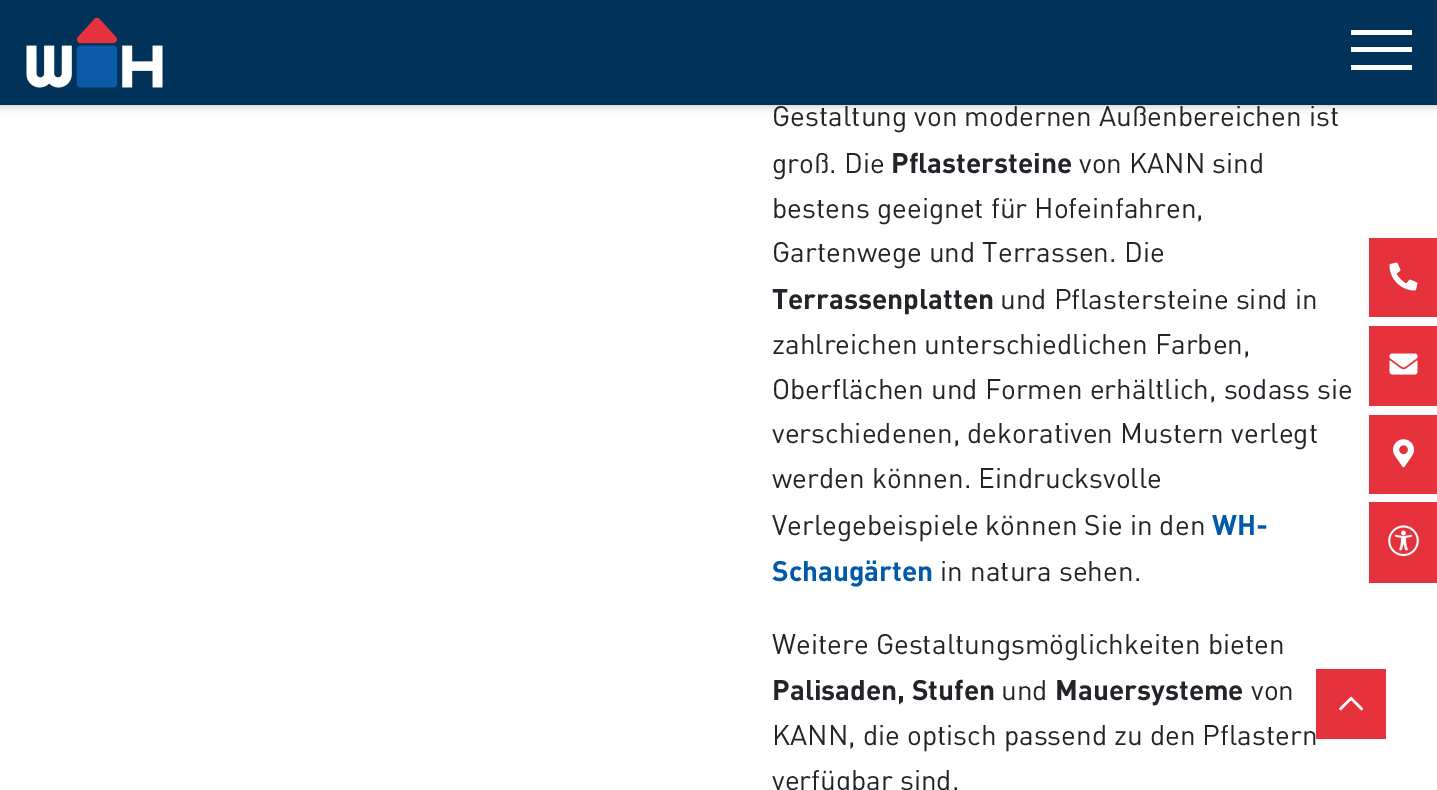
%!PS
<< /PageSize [1437 790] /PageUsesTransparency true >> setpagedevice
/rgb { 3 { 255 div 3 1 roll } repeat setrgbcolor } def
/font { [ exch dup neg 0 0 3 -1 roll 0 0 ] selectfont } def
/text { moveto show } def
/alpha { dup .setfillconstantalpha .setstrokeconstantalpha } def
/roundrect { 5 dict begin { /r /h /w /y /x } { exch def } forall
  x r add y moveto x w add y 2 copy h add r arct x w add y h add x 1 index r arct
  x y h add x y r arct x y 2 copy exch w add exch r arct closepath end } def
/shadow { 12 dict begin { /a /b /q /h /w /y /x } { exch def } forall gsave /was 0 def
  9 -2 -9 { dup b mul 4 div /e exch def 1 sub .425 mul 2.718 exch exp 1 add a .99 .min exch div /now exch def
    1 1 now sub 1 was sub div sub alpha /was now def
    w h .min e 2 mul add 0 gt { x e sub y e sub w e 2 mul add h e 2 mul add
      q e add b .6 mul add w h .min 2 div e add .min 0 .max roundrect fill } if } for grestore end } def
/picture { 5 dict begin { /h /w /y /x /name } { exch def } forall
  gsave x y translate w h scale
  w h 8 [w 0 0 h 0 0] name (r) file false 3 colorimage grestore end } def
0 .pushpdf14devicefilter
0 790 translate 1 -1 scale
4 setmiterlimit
255 255 255 rgb
0 0 1437 790 rectfill
0 0 0 rgb
0 0 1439 105 0 5 0.26 shadow
0 50 90 rgb
0 0 1437 105 rectfill
(img_01.rgb) 26 18 137 70 picture
255 255 255 rgb
1351 30 61 5 rectfill
1351 47 61 5 rectfill
1351 65 61 5 rectfill
230 50 60 rgb
1369 238 68 79 rectfill
(img_02.rgb) 1389 262 29 29 picture
1369 326 68 80 rectfill
(img_03.rgb) 1389 353 29 22 picture
1369 415 68 79 rectfill
(img_04.rgb) 1393 439 21 29 picture
1369 502 68 81 rectfill
(img_05.rgb) 1388 525 31 32 picture
1316 669 70 70 rectfill
(img_06.rgb) 1339 696 25 15 picture
/DIN-Regular 28 font
33 37 41 rgb
(Gestaltung von modernen Außenbereichen ist) 772 126 text
(groß. Die) 772 173 text
/DIN-Bold 28 font
(Pflastersteine) 891 173 text
/DIN-Regular 28 font
(von KANN sind) 1079 173 text
(bestens geeignet für Hofeinfahren,) 772 218 text
(Gartenwege und Terrassen. Die) 772 262 text
/DIN-Bold 28 font
(Terrassenplatten) 772 309 text
/DIN-Regular 28 font
(und Pflastersteine sind in) 1000 309 text
(zahlreichen unterschiedlichen Farben,) 772 354 text
(Oberflächen und Formen erhältlich, sodass sie) 772 399 text
(verschiedenen, dekorativen Mustern verlegt) 772 443 text
(werden können. Eindrucksvolle) 772 488 text
(Verlegebeispiele können Sie in den) 772 535 text
/DIN-Bold 28 font
0 90 170 rgb
(WH-) 1212 535 text
(Schaugärten) 772 581 text
/DIN-Regular 28 font
33 37 41 rgb
(in natura sehen.) 940 581 text
(Weitere Gestaltungsmöglichkeiten bieten) 772 654 text
/DIN-Bold 28 font
(Palisaden, Stufen) 772 700 text
/DIN-Regular 28 font
(und) 1001 700 text
/DIN-Bold 28 font
(Mauersysteme) 1055 700 text
/DIN-Regular 28 font
(von) 1251 700 text
(KANN, die optisch passend zu den Pflastern) 772 745 text
(verfügbar sind.) 772 790 text
.poppdf14devicefilter showpage
